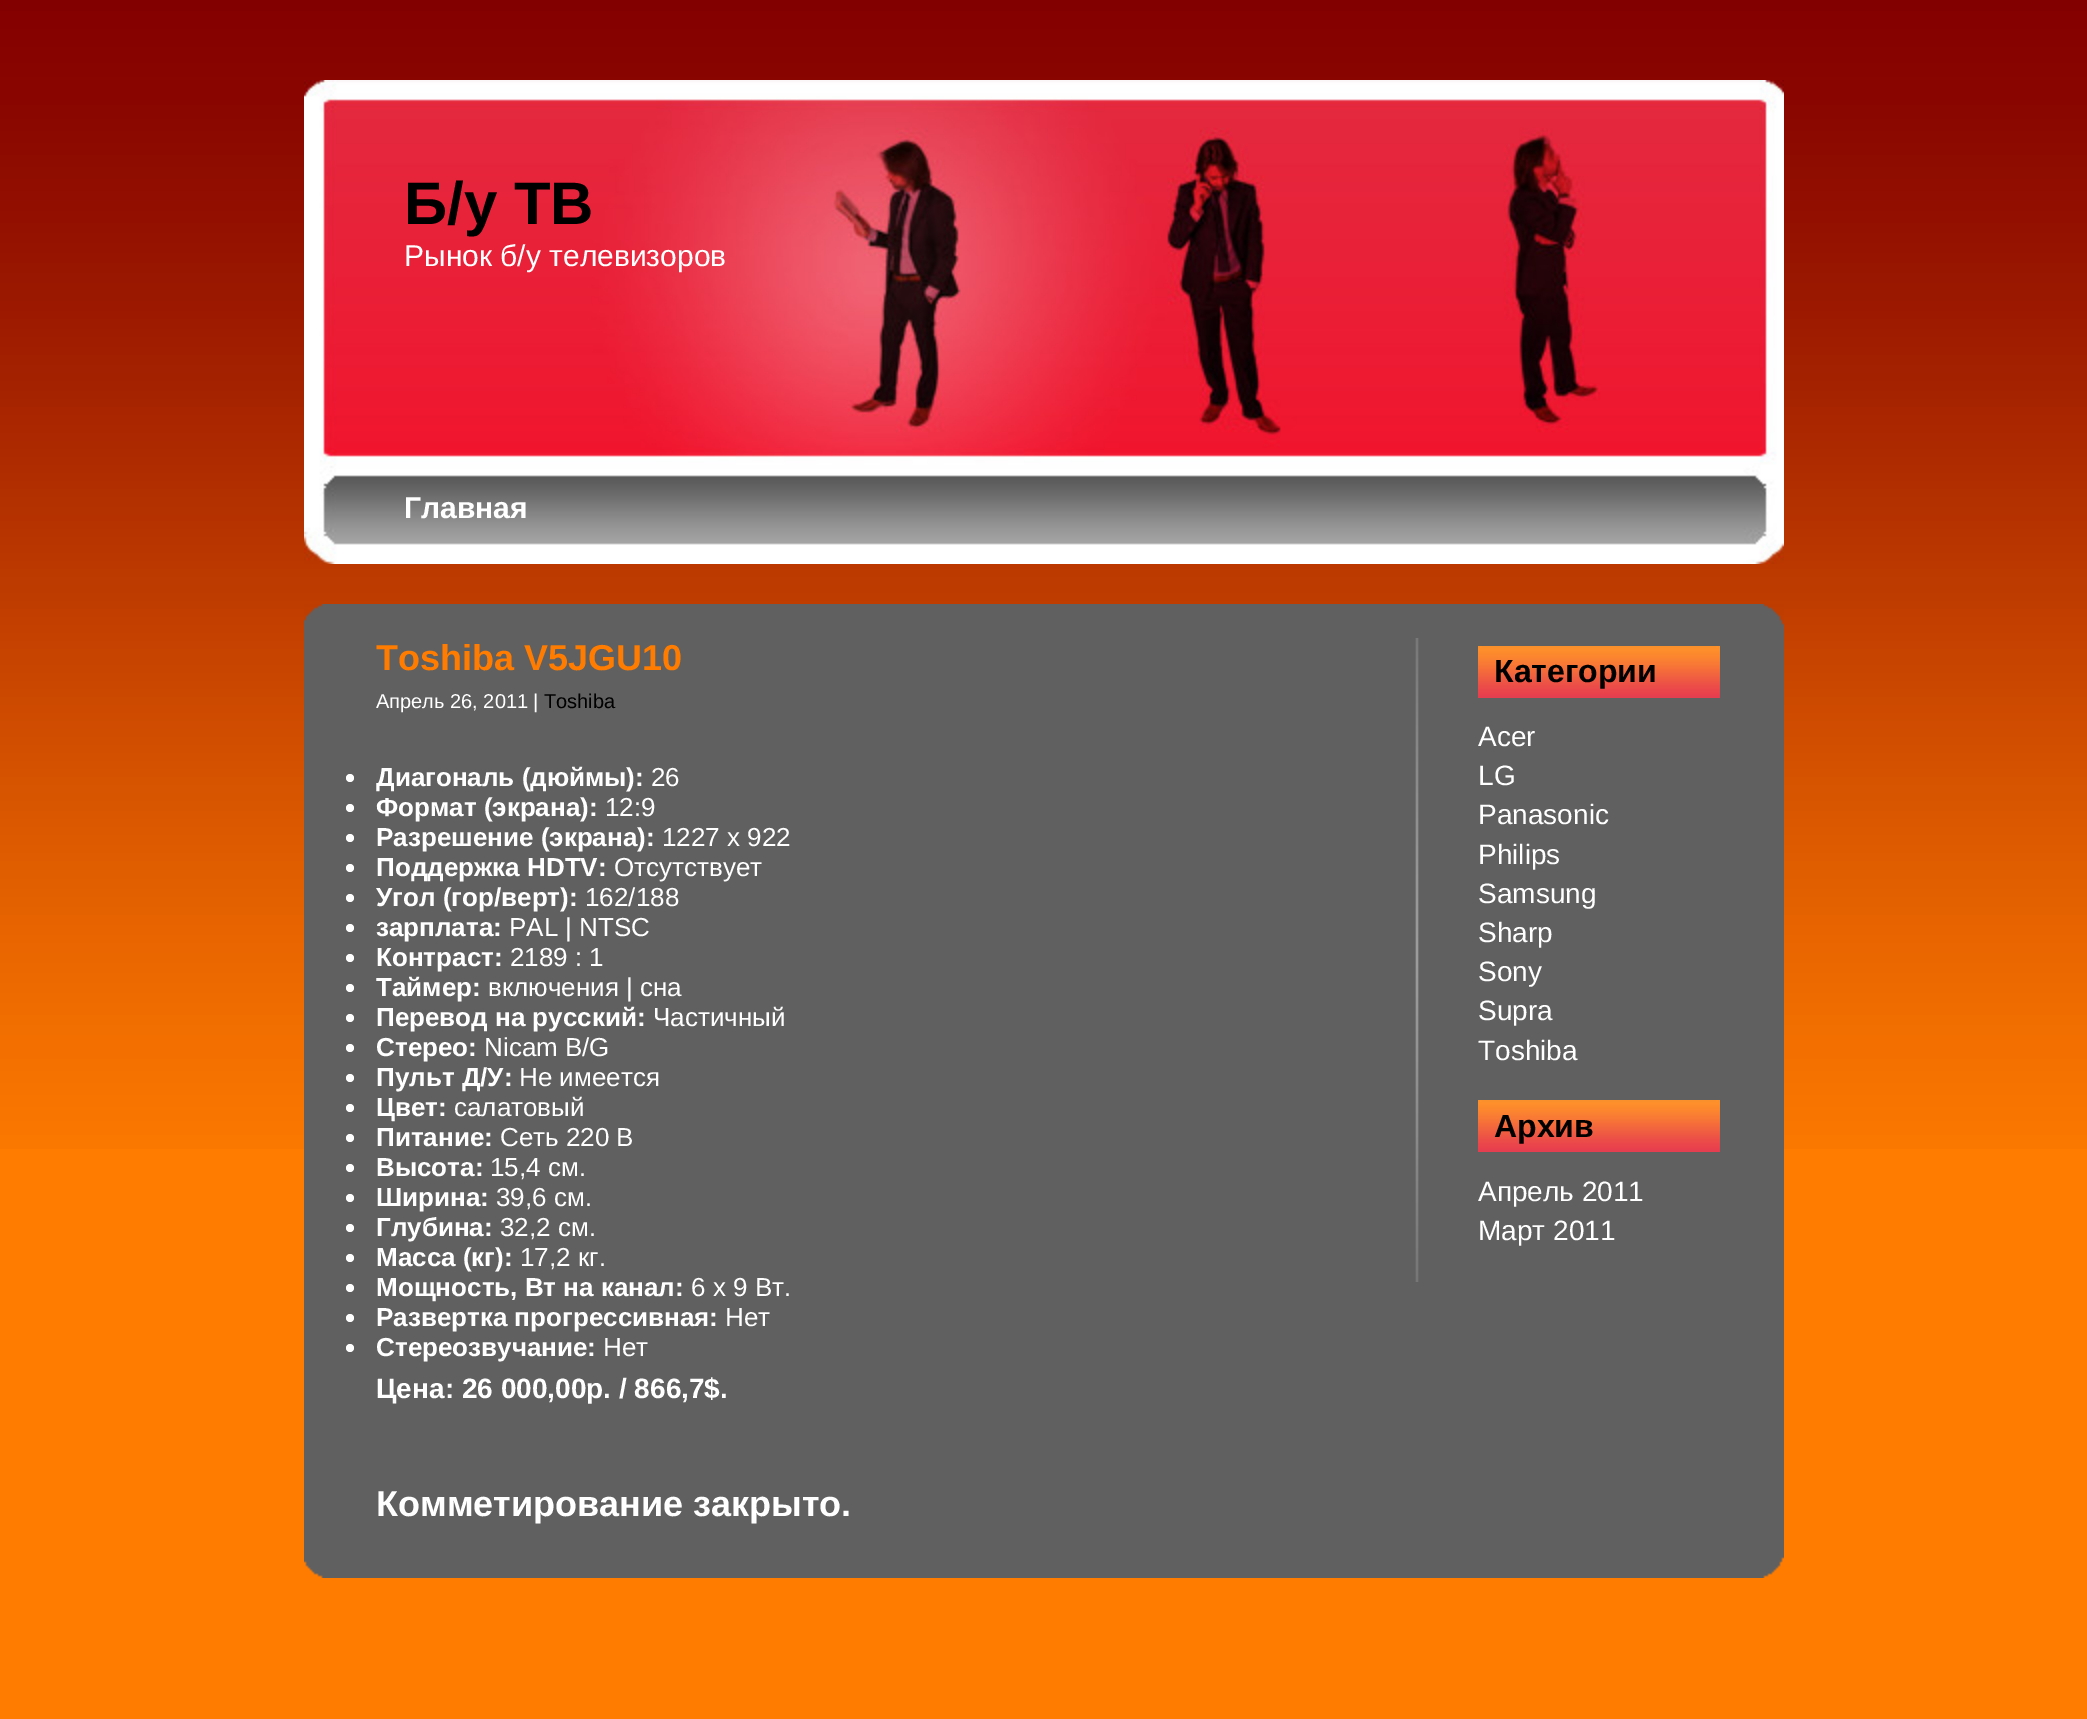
%!PS
<< /PageSize [2087 1719] >> setpagedevice
/rgb { 3 { 255 div 3 1 roll } repeat setrgbcolor } def
/font { [ exch dup neg 0 0 3 -1 roll 0 0 ] selectfont } def
/text { moveto show } def
/circle { newpath 0 360 arc closepath } def
/picture { 5 dict begin { /h /w /y /x /name } { exch def } forall
  gsave x y translate w h scale
  w h 8 [w 0 0 h 0 0] name (r) file false 3 colorimage grestore end } def
0 1719 translate 1 -1 scale
4 setmiterlimit
255 124 0 rgb
0 0 2087 1719 rectfill
(img_01.rgb) 0 0 2087 1149 picture
(img_02.rgb) 304 80 1480 484 picture
96 96 96 rgb
304 625 1480 932 rectfill
(img_03.rgb) 304 604 1480 21 picture
255 255 255 rgb
350 778 4 circle fill
350 808 4 circle fill
350 838 4 circle fill
350 868 4 circle fill
350 898 4 circle fill
350 928 4 circle fill
350 958 4 circle fill
350 988 4 circle fill
350 1018 4 circle fill
350 1048 4 circle fill
350 1078 4 circle fill
350 1108 4 circle fill
350 1138 4 circle fill
350 1168 4 circle fill
350 1198 4 circle fill
350 1228 4 circle fill
350 1258 4 circle fill
350 1288 4 circle fill
350 1318 4 circle fill
350 1348 4 circle fill
(img_04.rgb) 1415 638 4 644 picture
(img_05.rgb) 1478 646 242 52 picture
(img_05.rgb) 1478 1100 242 52 picture
(img_06.rgb) 304 1557 1480 21 picture
/LiberationSans-Bold 60 font
0 0 0 rgb
(Б/у ТВ) 404 224 text
/LiberationSans-Regular 30 font
255 255 255 rgb
(Рынок б/у телевизоров) 404 266 text
/LiberationSans-Bold 30 font
(Главная) 404 518 text
/LiberationSans-Bold 36 font
255 124 0 rgb
(Toshiba V5JGU10) 376 670 text
/LiberationSans-Regular 20 font
255 255 255 rgb
(Апрель 26, 2011 |) 376 708 text
0 0 0 rgb
(Toshiba) 544 708 text
/LiberationSans-Bold 26 font
255 255 255 rgb
(Диагональ \(дюймы\):) 376 786 text
/LiberationSans-Regular 26 font
(26) 651 786 text
/LiberationSans-Bold 26 font
(Формат \(экрана\):) 376 816 text
/LiberationSans-Regular 26 font
(12:9) 605 816 text
/LiberationSans-Bold 26 font
(Разрешение \(экрана\):) 376 846 text
/LiberationSans-Regular 26 font
(1227 x 922) 662 846 text
/LiberationSans-Bold 26 font
(Поддержка HDTV:) 376 876 text
/LiberationSans-Regular 26 font
(Отсутствует) 614 876 text
/LiberationSans-Bold 26 font
(Угол \(гор/верт\):) 376 906 text
/LiberationSans-Regular 26 font
(162/188) 585 906 text
/LiberationSans-Bold 26 font
(зарплата:) 376 936 text
/LiberationSans-Regular 26 font
(PAL | NTSC) 509 936 text
/LiberationSans-Bold 26 font
(Контраст:) 376 966 text
/LiberationSans-Regular 26 font
(2189 : 1) 510 966 text
/LiberationSans-Bold 26 font
(Таймер:) 376 996 text
/LiberationSans-Regular 26 font
(включения | сна) 488 996 text
/LiberationSans-Bold 26 font
(Перевод на русский:) 376 1026 text
/LiberationSans-Regular 26 font
(Частичный) 653 1026 text
/LiberationSans-Bold 26 font
(Стерео:) 376 1056 text
/LiberationSans-Regular 26 font
(Nicam B/G) 484 1056 text
/LiberationSans-Bold 26 font
(Пульт Д/У:) 376 1086 text
/LiberationSans-Regular 26 font
(Не имеется) 519 1086 text
/LiberationSans-Bold 26 font
(Цвет:) 376 1116 text
/LiberationSans-Regular 26 font
(салатовый) 454 1116 text
/LiberationSans-Bold 26 font
(Питание:) 376 1146 text
/LiberationSans-Regular 26 font
(Сеть 220 В) 500 1146 text
/LiberationSans-Bold 26 font
(Высота:) 376 1176 text
/LiberationSans-Regular 26 font
(15,4 см.) 490 1176 text
/LiberationSans-Bold 26 font
(Ширина:) 376 1206 text
/LiberationSans-Regular 26 font
(39,6 см.) 496 1206 text
/LiberationSans-Bold 26 font
(Глубина:) 376 1236 text
/LiberationSans-Regular 26 font
(32,2 см.) 500 1236 text
/LiberationSans-Bold 26 font
(Масса \(кг\):) 376 1266 text
/LiberationSans-Regular 26 font
(17,2 кг.) 520 1266 text
/LiberationSans-Bold 26 font
(Мощность, Вт на канал:) 376 1296 text
/LiberationSans-Regular 26 font
(6 x 9 Вт.) 691 1296 text
/LiberationSans-Bold 26 font
(Развертка прогрессивная:) 376 1326 text
/LiberationSans-Regular 26 font
(Нет) 725 1326 text
/LiberationSans-Bold 26 font
(Стереозвучание:) 376 1356 text
/LiberationSans-Regular 26 font
(Нет) 603 1356 text
/LiberationSans-Bold 28 font
(Цена: 26 000,00р. / 866,7$.) 376 1398 text
/LiberationSans-Bold 36 font
(Комметирование закрыто.) 376 1516 text
/LiberationSans-Bold 32 font
0 0 0 rgb
(Категории) 1494 682 text
/LiberationSans-Regular 28 font
255 255 255 rgb
(Acer) 1478 746 text
(LG) 1478 785 text
(Panasonic) 1478 824 text
(Philips) 1478 864 text
(Samsung) 1478 903 text
(Sharp) 1478 942 text
(Sony) 1478 981 text
(Supra) 1478 1020 text
(Toshiba) 1478 1060 text
/LiberationSans-Bold 32 font
0 0 0 rgb
(Архив) 1494 1137 text
/LiberationSans-Regular 28 font
255 255 255 rgb
(Апрель 2011) 1478 1201 text
(Март 2011) 1478 1240 text
showpage
